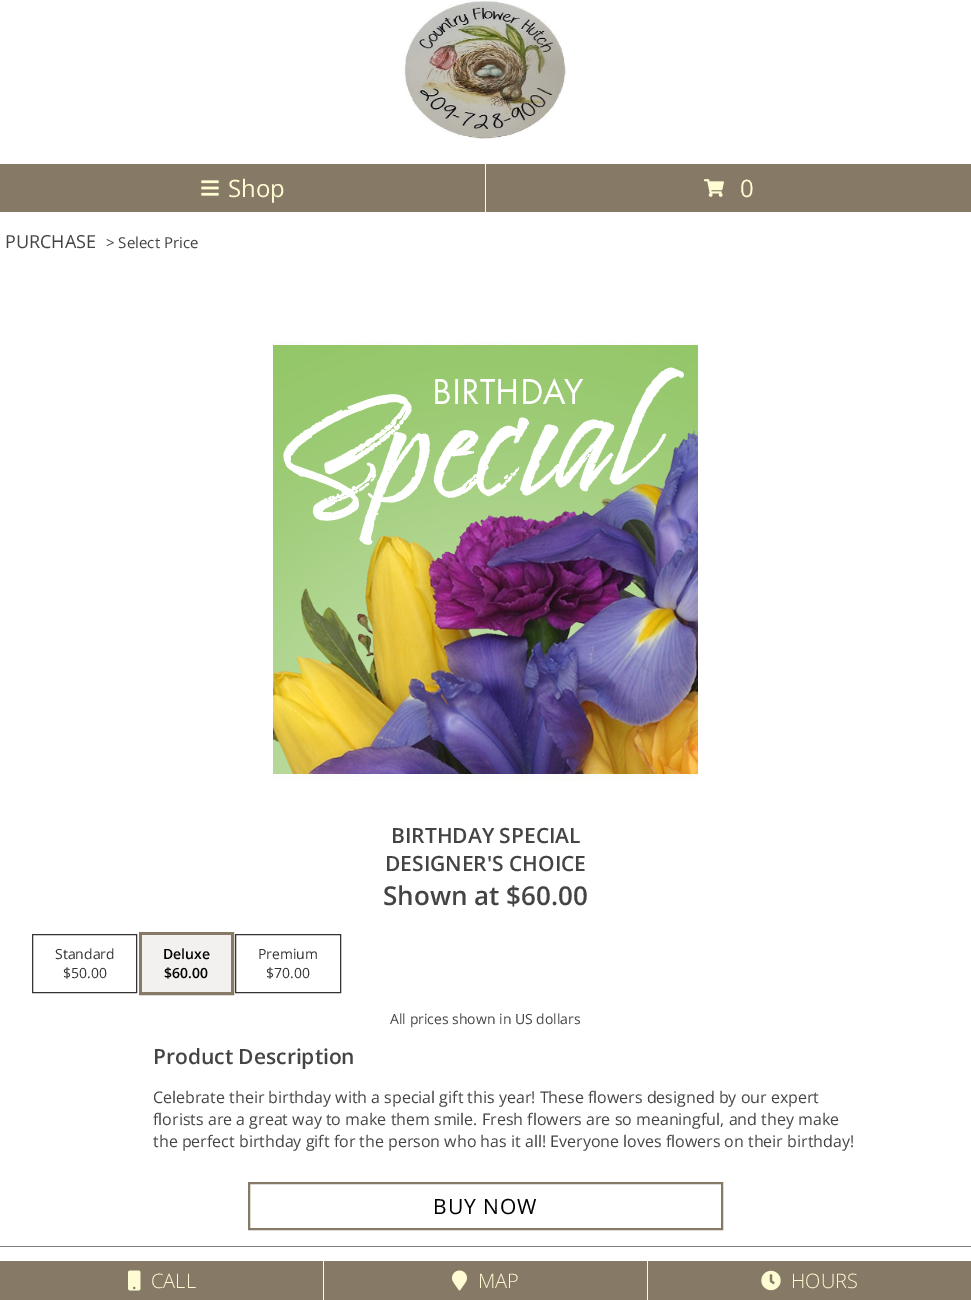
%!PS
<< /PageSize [971 1300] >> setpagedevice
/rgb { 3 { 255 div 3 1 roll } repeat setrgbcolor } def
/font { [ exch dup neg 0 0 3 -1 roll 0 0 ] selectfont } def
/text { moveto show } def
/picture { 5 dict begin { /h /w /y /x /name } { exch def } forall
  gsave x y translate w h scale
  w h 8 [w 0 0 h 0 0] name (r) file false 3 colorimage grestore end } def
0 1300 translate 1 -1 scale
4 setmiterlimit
255 255 255 rgb
0 0 971 1300 rectfill
(img_01.rgb) 404 0 162 139 picture
255 252 212 rgb
485 164 1 48 rectfill
134 122 102 rgb
0 164 485 48 rectfill
(img_02.rgb) 201 180 18 16 picture
486 164 485 48 rectfill
(img_03.rgb) 704 179 20 18 picture
(img_04.rgb) 273 341 425 440 picture
51 51 51 rgb
32.5 934.5 104 58 rectstroke
134 122 102 rgb
3 setlinewidth
140.5 933.5 92 60 rectstroke
242 241 239 rgb
142 935 89 57 rectfill
51 51 51 rgb
1 setlinewidth
235.5 934.5 105 58 rectstroke
134 122 102 rgb
2 setlinewidth
249 1183 473 46 rectstroke
128 128 128 rgb
0 1246 971 1 rectfill
134 122 102 rgb
0 1261 323 39 rectfill
(img_05.rgb) 128 1270 13 21 picture
324 1261 323 39 rectfill
255 252 212 rgb
323 1261 1 39 rectfill
(img_06.rgb) 452 1270 15 21 picture
134 122 102 rgb
648 1261 323 39 rectfill
255 252 212 rgb
647 1261 1 39 rectfill
(img_07.rgb) 761 1270 20 21 picture
/OpenSans-Regular 24 font
(Shop) 228 197 text
(0) 740 197 text
/OpenSans-Regular 18 font
68 68 68 rgb
(PURCHASE) 5 248 text
/OpenSans-Regular 15 font
(> Select Price) 106 248 text
/OpenSans-SemiBold 21 font
(BIRTHDAY SPECIAL) 391 843 text
(DESIGNER'S CHOICE) 385 871 text
/OpenSans-SemiBold 26 font
(Shown at $60.00) 383 905 text
/OpenSans-Regular 14 font
51 51 51 rgb
(Standard) 55 959 text
($50.00) 63 978 text
/OpenSans-SemiBold 14 font
0 0 0 rgb
(Deluxe) 163 959 text
($60.00) 164 978 text
/OpenSans-Regular 14 font
51 51 51 rgb
(Premium) 258 959 text
($70.00) 266 978 text
68 68 68 rgb
(All prices shown in US dollars) 390 1024 text
/OpenSans-SemiBold 21 font
(Product Description) 153 1064 text
/OpenSans-Regular 16 font
(Celebrate their birthday with a special gift this year! These flowers designed by our expert) 153 1103 text
(florists are a great way to make them smile. Fresh flowers are so meaningful, and they make) 153 1125 text
(the perfect birthday gift for the person who has it all! Everyone loves flowers on their birthday!) 153 1147 text
/OpenSans-Regular 21 font
0 0 0 rgb
433 1214 moveto 1 0 (BUY NOW) ashow
/OpenSans-Light 20 font
255 252 212 rgb
(CALL) 151 1288 text
(MAP) 478 1288 text
(HOURS) 791 1288 text
showpage
